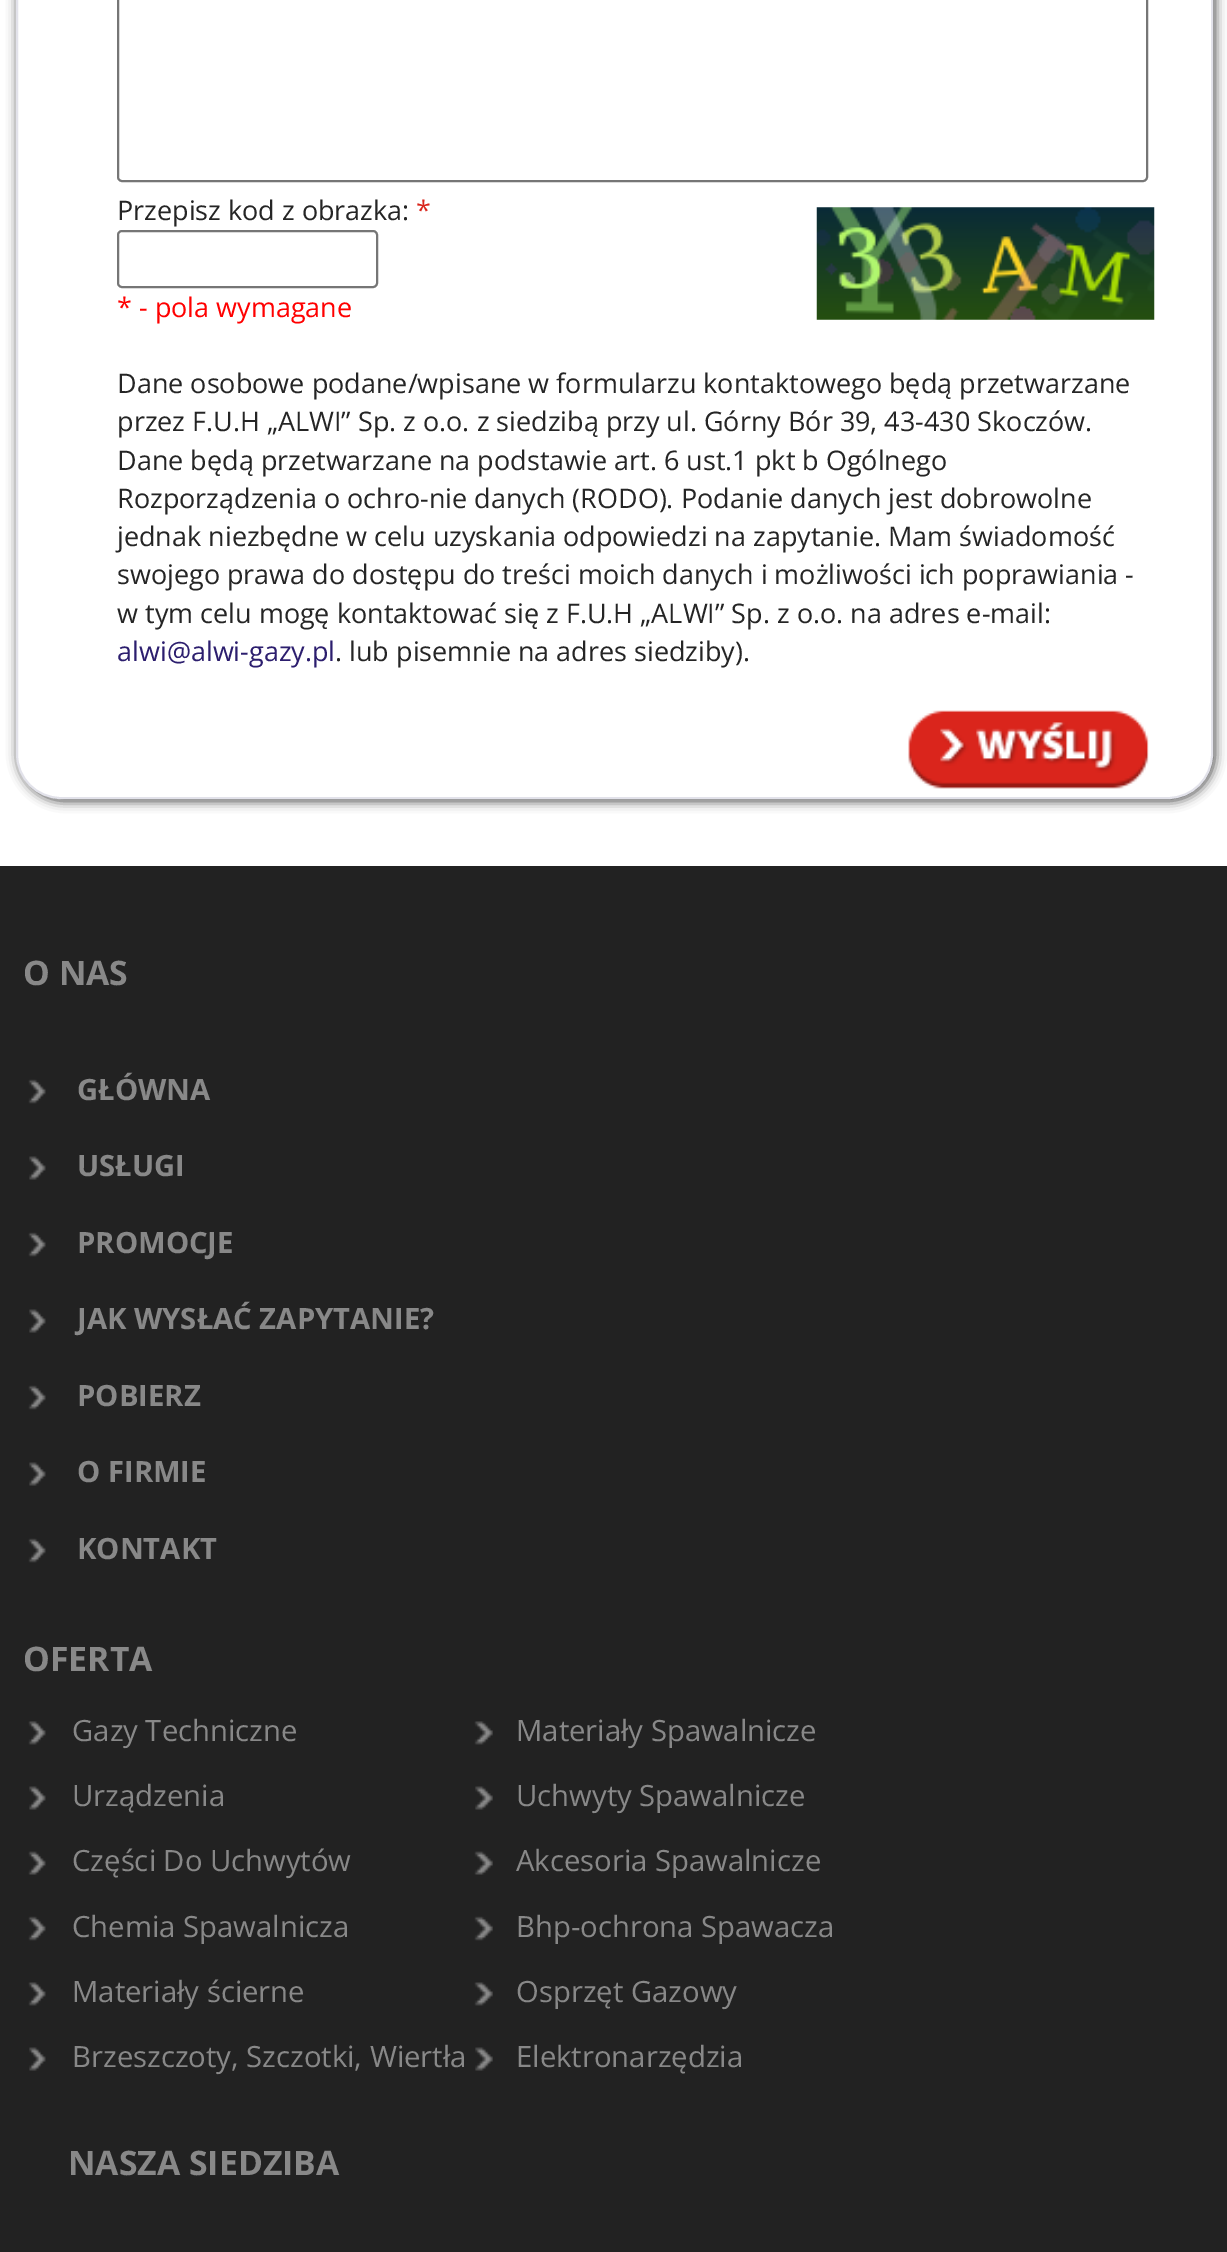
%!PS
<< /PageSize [1227 2252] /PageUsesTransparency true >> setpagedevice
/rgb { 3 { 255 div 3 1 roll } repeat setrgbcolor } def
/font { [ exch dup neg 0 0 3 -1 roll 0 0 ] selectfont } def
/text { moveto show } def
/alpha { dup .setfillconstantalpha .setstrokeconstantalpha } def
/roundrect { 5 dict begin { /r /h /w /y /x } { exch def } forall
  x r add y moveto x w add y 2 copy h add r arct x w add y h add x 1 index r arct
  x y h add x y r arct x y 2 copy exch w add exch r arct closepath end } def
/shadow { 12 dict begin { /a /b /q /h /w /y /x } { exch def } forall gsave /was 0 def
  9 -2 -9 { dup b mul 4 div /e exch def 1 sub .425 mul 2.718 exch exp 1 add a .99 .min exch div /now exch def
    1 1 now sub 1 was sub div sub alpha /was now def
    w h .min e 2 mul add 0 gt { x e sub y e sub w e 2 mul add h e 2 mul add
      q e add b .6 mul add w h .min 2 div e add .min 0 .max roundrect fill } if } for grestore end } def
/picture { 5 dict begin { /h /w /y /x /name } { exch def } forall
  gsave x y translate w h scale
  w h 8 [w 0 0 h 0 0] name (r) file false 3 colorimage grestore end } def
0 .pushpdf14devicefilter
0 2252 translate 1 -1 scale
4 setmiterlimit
255 255 255 rgb
0 0 1227 2252 rectfill
gsave
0 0 moveto 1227 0 rlineto 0 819 rlineto -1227 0 rlineto closepath 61 -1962 moveto 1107 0 rlineto 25 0 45 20 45 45 rcurveto 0 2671 rlineto 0 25 -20 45 -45 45 rcurveto -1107 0 rlineto -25 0 -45 -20 -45 -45 rcurveto 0 -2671 rlineto 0 -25 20 -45 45 -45 rcurveto closepath eoclip newpath
0 0 0 rgb
18 -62 1197 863 45 5.5 0.75 shadow
grestore
226 226 234 rgb
2 setlinewidth
17 -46 1195 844 44 roundrect stroke
118 118 118 rgb
118 -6 1029 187 4 roundrect stroke
118 231 259 56 4 roundrect stroke
(img_01.rgb) 816 207 339 113 picture
(img_02.rgb) 908 710 241 79 picture
34 34 34 rgb
0 866 1227 1386 rectfill
(img_03.rgb) 28 1079 18 25 picture
(img_04.rgb) 29 1156 17 24 picture
(img_03.rgb) 28 1232 18 25 picture
(img_04.rgb) 29 1309 17 24 picture
(img_05.rgb) 28 1385 18 25 picture
(img_04.rgb) 29 1462 17 24 picture
(img_03.rgb) 28 1538 18 25 picture
(img_06.rgb) 28 1721 18 24 picture
(img_07.rgb) 474 1721 19 24 picture
(img_04.rgb) 29 1786 17 24 picture
(img_08.rgb) 475 1786 18 24 picture
(img_09.rgb) 28 1851 18 24 picture
(img_10.rgb) 474 1851 19 24 picture
(img_03.rgb) 28 1916 18 25 picture
(img_11.rgb) 474 1916 19 25 picture
(img_12.rgb) 28 1982 18 24 picture
(img_13.rgb) 474 1982 19 24 picture
(img_04.rgb) 29 2047 17 24 picture
(img_08.rgb) 475 2047 18 24 picture
/OpenSans-Regular 27 font
37 37 37 rgb
(Przepisz kod z obrazka:) 117 220 text
217 38 28 rgb
(*) 416 220 text
255 0 0 rgb
(* - pola wymagane) 117 317 text
37 37 37 rgb
(Dane osobowe podane/wpisane w formularzu kontaktowego będą przetwarzane) 117 393 text
(przez F.U.H „ALWI” Sp. z o.o. z siedzibą przy ul. Górny Bór 39, 43-430 Skoczów.) 117 431 text
(Dane będą przetwarzane na podstawie art. 6 ust.1 pkt b Ogólnego) 117 470 text
(Rozporządzenia o ochro-nie danych \(RODO\). Podanie danych jest dobrowolne) 117 508 text
(jednak niezbędne w celu uzyskania odpowiedzi na zapytanie. Mam świadomość) 117 546 text
(swojego prawa do dostępu do treści moich danych i możliwości ich poprawiania -) 117 584 text
(w tym celu mogę kontaktować się z F.U.H „ALWI” Sp. z o.o. na adres e-mail:) 117 623 text
44 30 110 rgb
(alwi@alwi-gazy.pl) 117 661 text
37 37 37 rgb
(. lub pisemnie na adres siedziby\).) 335 661 text
/OpenSans-Bold 33.75 font
136 136 136 rgb
(O NAS) 23 985 text
/OpenSans-Bold 29.25 font
(GŁÓWNA) 77 1100 text
(USŁUGI) 77 1176 text
(PROMOCJE) 77 1253 text
(JAK WYSŁAĆ ZAPYTANIE?) 77 1329 text
(POBIERZ) 77 1406 text
(O FIRMIE) 77 1482 text
(KONTAKT) 77 1559 text
/OpenSans-Bold 33.75 font
(OFERTA) 23 1671 text
/OpenSans-Regular 29.25 font
(Gazy Techniczne) 72 1741 text
(Materiały Spawalnicze) 516 1741 text
(Urządzenia) 72 1806 text
(Uchwyty Spawalnicze) 516 1806 text
(Części Do Uchwytów) 72 1871 text
(Akcesoria Spawalnicze) 516 1871 text
(Chemia Spawalnicza) 72 1937 text
(Bhp-ochrona Spawacza) 516 1937 text
(Materiały ścierne) 72 2002 text
(Osprzęt Gazowy) 516 2002 text
(Brzeszczoty, Szczotki, Wiertła) 72 2067 text
(Elektronarzędzia) 516 2067 text
/OpenSans-Bold 33.75 font
(NASZA SIEDZIBA) 68 2175 text
.poppdf14devicefilter showpage
